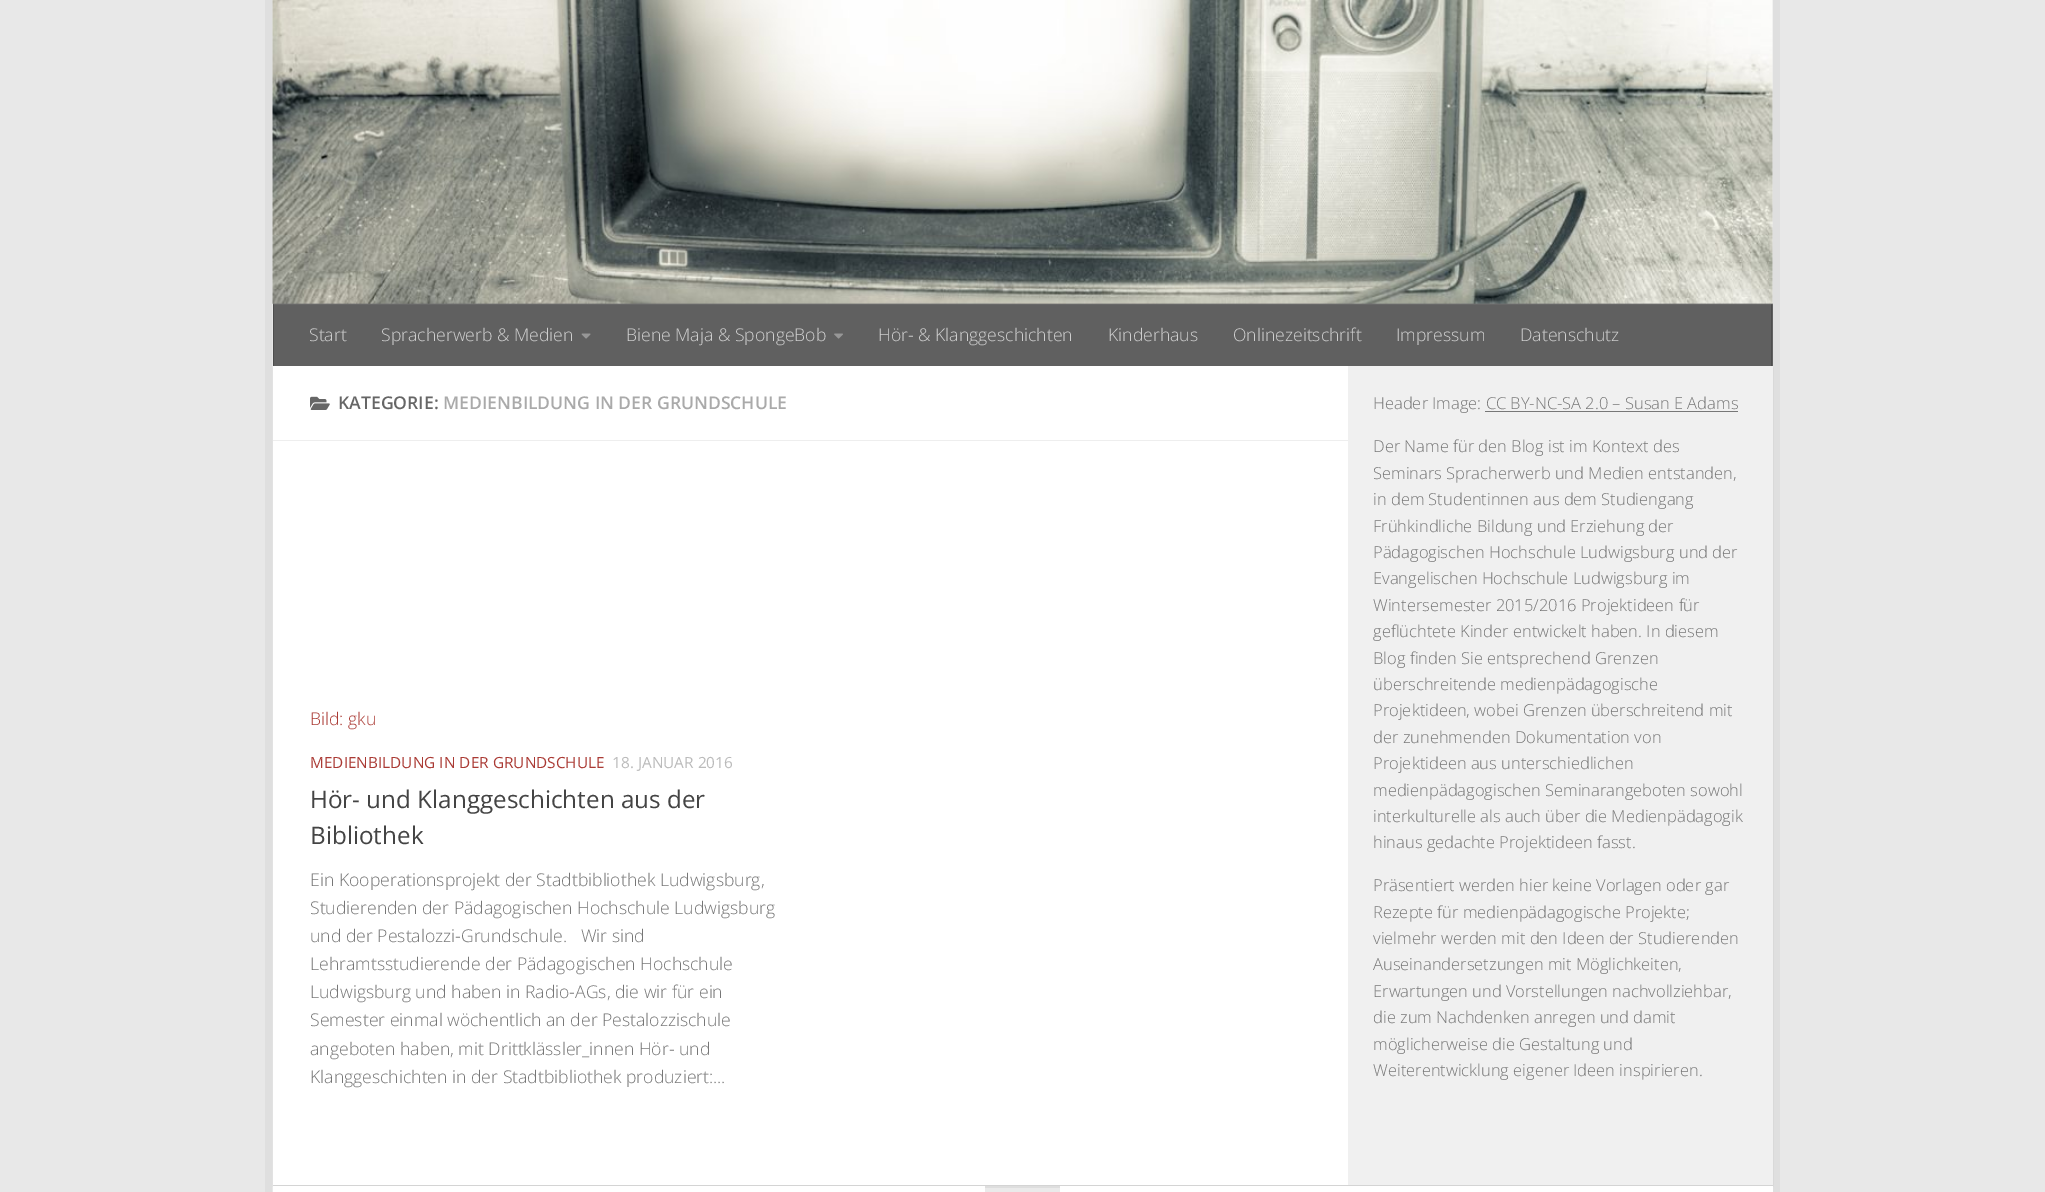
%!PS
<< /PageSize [2045 1192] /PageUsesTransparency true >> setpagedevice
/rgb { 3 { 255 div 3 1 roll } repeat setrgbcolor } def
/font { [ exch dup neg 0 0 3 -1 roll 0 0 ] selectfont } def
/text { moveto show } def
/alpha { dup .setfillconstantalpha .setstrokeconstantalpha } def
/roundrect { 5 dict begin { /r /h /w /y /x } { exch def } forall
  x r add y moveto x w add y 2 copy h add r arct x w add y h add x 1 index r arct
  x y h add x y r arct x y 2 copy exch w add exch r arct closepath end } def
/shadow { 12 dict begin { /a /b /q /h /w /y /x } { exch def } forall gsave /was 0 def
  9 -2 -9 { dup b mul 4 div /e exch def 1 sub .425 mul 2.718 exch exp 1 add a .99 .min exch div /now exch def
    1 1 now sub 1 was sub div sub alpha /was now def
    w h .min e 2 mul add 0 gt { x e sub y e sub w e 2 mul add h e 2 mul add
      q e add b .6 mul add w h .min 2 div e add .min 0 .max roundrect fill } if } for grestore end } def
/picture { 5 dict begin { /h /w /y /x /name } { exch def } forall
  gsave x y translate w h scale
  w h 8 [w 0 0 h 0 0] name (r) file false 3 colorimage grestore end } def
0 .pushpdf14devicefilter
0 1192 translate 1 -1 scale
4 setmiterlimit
232 232 232 rgb
0 0 2045 1192 rectfill
223 223 223 rgb
265 0 7 1192 rectfill
1773 0 7 1192 rectfill
(img_01.rgb) 272 0 1501 304 picture
0.2 alpha
0 0 0 rgb
273 303 moveto 0 1 rlineto 1499 0 rlineto 0 61 rlineto 1 0 rlineto 0 -62 rlineto closepath fill
1 alpha
273 368 1500 818 0 0.5 0.1 shadow
96 96 96 rgb
274 304 1499 62 rectfill
77 77 77 rgb
1771 304 1 62 rectfill
273 304 1 62 rectfill
0.05 alpha
255 255 255 rgb
273 304 1500 1 rectfill
1 alpha
(img_02.rgb) 581 333 10 6 picture
(img_03.rgb) 834 333 9 6 picture
273 366 1075 819 rectfill
240 240 240 rgb
1348 366 425 819 rectfill
238 238 238 rgb
273 440 1075 1 rectfill
(img_04.rgb) 310 396 20 14 picture
255 255 255 rgb
273 1186 1500 6 rectfill
234 234 234 rgb
985 1188 75 4 rectfill
222 222 222 rgb
985 1186 75 2 rectfill
/OpenSans-Light 17.6 font
207 207 207 rgb
(Start) 309 341 text
(Spracherwerb & Medien) 381 341 text
(Biene Maja & SpongeBob) 626 341 text
(Hör- & Klanggeschichten) 878 341 text
(Kinderhaus) 1108 341 text
(Onlinezeitschrift) 1233 341 text
(Impressum) 1396 341 text
(Datenschutz) 1520 341 text
/OpenSans-SemiBold 17.6 font
102 102 102 rgb
(KATEGORIE:) 338 409 text
170 170 170 rgb
(MEDIENBILDUNG IN DER GRUNDSCHULE) 443 409 text
/OpenSans-Light 17.6 font
170 58 52 rgb
(Bild: gku) 310 725 text
/OpenSans-Regular 15.4 font
(MEDIENBILDUNG IN DER GRUNDSCHULE) 310 768 text
187 187 187 rgb
(18. JANUAR 2016) 612 768 text
/OpenSans-Regular 24.25 font
68 68 68 rgb
(Hör- und Klanggeschichten aus der) 310 808 text
(Bibliothek) 310 844 text
/OpenSans-Light 17.6 font
118 118 118 rgb
(Ein Kooperationsprojekt der Stadtbibliothek Ludwigsburg,) 310 886 text
(Studierenden der Pädagogischen Hochschule Ludwigsburg) 310 914 text
(und der Pestalozzi-Grundschule.   Wir sind) 310 942 text
(Lehramtsstudierende der Pädagogischen Hochschule) 310 970 text
(Ludwigsburg und haben in Radio-AGs, die wir für ein) 310 998 text
(Semester einmal wöchentlich an der Pestalozzischule) 310 1026 text
(angeboten haben, mit Drittklässler_innen Hör- und) 310 1055 text
(Klanggeschichten in der Stadtbibliothek produziert:...) 310 1083 text
/OpenSans-Light 16.5 font
(Header Image: CC BY-NC-SA 2.0 – Susan E Adams) 1373 409 text
119 119 119 rgb
1485 411 253 1 rectfill
118 118 118 rgb
(Der Name für den Blog ist im Kontext des) 1373 452 text
(Seminars Spracherwerb und Medien entstanden,) 1373 479 text
(in dem Studentinnen aus dem Studiengang) 1373 505 text
(Frühkindliche Bildung und Erziehung der) 1373 532 text
(Pädagogischen Hochschule Ludwigsburg und der) 1373 558 text
(Evangelischen Hochschule Ludwigsburg im) 1373 584 text
(Wintersemester 2015/2016 Projektideen für) 1373 611 text
(geflüchtete Kinder entwickelt haben. In diesem) 1373 637 text
(Blog finden Sie entsprechend Grenzen) 1373 664 text
(überschreitende medienpädagogische) 1373 690 text
(Projektideen, wobei Grenzen überschreitend mit) 1373 716 text
(der zunehmenden Dokumentation von) 1373 743 text
(Projektideen aus unterschiedlichen) 1373 769 text
(medienpädagogischen Seminarangeboten sowohl) 1373 796 text
(interkulturelle als auch über die Medienpädagogik) 1373 822 text
(hinaus gedachte Projektideen fasst.) 1373 848 text
(Präsentiert werden hier keine Vorlagen oder gar) 1373 891 text
(Rezepte für medienpädagogische Projekte;) 1373 918 text
(vielmehr werden mit den Ideen der Studierenden) 1373 944 text
(Auseinandersetzungen mit Möglichkeiten,) 1373 970 text
(Erwartungen und Vorstellungen nachvollziehbar,) 1373 997 text
(die zum Nachdenken anregen und damit) 1373 1023 text
(möglicherweise die Gestaltung und) 1373 1050 text
(Weiterentwicklung eigener Ideen inspirieren.) 1373 1076 text
.poppdf14devicefilter showpage
